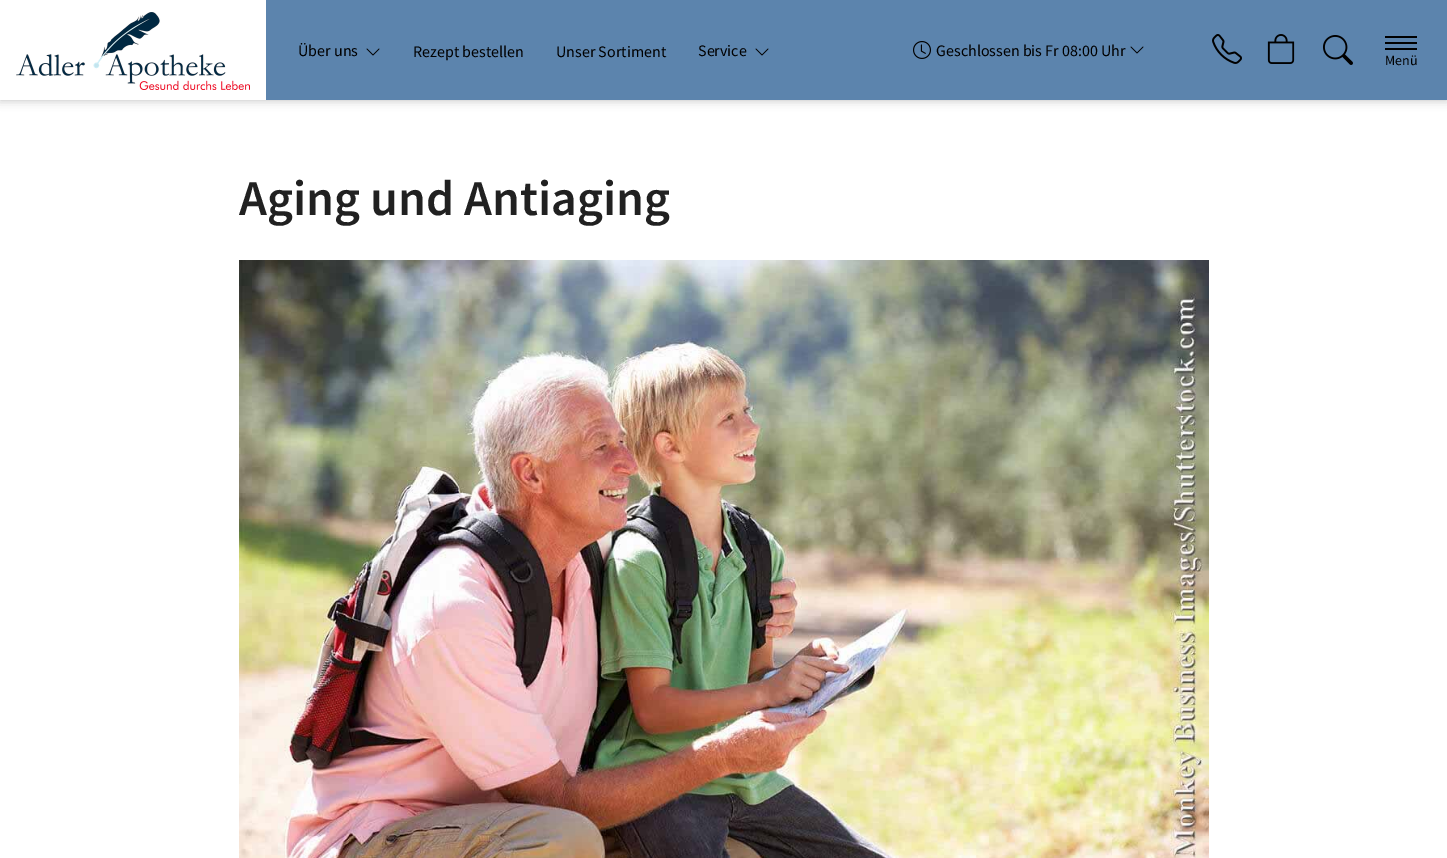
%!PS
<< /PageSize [1447 858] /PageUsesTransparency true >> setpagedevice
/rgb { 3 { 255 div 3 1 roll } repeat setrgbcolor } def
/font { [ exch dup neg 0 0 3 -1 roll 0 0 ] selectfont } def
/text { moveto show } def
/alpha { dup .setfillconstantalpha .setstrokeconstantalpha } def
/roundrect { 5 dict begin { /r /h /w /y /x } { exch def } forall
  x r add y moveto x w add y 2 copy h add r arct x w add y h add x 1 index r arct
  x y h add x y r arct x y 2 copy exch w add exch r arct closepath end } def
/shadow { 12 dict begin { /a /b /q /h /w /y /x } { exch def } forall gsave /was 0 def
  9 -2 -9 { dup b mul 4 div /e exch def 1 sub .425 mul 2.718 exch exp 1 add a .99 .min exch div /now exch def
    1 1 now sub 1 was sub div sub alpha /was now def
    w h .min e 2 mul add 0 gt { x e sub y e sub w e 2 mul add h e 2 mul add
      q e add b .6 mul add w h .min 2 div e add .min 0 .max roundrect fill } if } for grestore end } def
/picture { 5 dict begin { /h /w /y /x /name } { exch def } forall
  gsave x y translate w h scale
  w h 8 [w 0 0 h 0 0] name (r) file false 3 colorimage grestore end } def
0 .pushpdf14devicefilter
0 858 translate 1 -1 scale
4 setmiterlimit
255 255 255 rgb
0 0 1447 858 rectfill
0 0 0 rgb
0 0 1447 100 0 5 0.25 shadow
92 132 173 rgb
266 0 1181 100 rectfill
255 255 255 rgb
0 0 266 100 rectfill
(img_01.rgb) 16 12 234 78 picture
(img_02.rgb) 366 48 14 8 picture
(img_02.rgb) 755 48 14 8 picture
(img_03.rgb) 913 41 18 18 picture
(img_02.rgb) 1130 46 14 8 picture
(img_04.rgb) 1212 34 30 30 picture
(img_05.rgb) 1267 34 28 30 picture
(img_06.rgb) 1323 35 30 30 picture
0 0 0 rgb
1385 42 32 2 rectfill
1385 36 32 2 rectfill
1385 48 32 2 rectfill
(img_07.rgb) 239 260 970 598 picture
/SourceSansPro-Regular 16 font
(Über uns) 298 56 text
(Rezept bestellen) 413 57 text
(Unser Sortiment) 556 57 text
(Service) 698 56 text
(Geschlossen bis Fr 08:00 Uhr) 936 56 text
/SourceSansPro-Regular 14 font
(Menü) 1385 65 text
/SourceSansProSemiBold-SemiBold 50 font
33 33 33 rgb
(Aging und Antiaging) 239 215 text
.poppdf14devicefilter showpage
